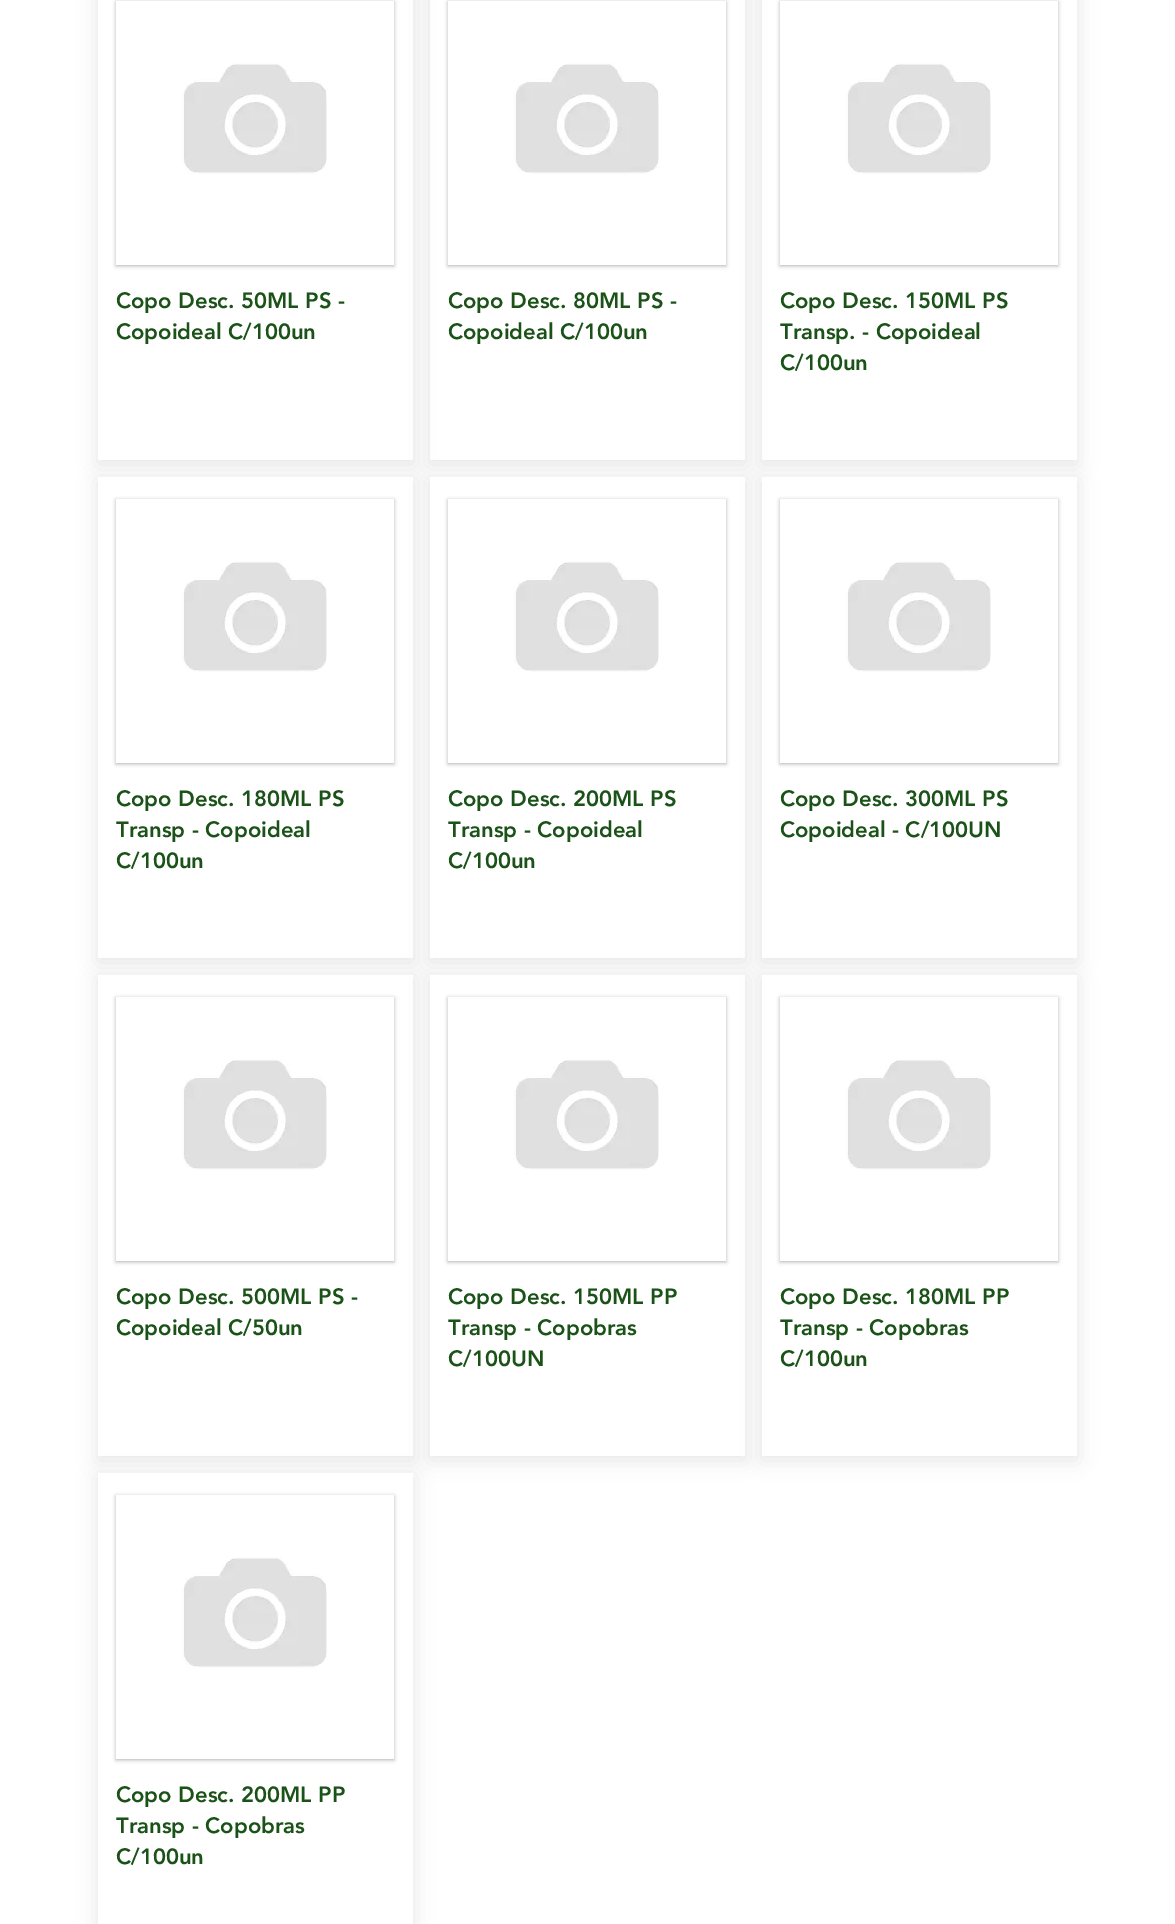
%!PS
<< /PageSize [1175 1924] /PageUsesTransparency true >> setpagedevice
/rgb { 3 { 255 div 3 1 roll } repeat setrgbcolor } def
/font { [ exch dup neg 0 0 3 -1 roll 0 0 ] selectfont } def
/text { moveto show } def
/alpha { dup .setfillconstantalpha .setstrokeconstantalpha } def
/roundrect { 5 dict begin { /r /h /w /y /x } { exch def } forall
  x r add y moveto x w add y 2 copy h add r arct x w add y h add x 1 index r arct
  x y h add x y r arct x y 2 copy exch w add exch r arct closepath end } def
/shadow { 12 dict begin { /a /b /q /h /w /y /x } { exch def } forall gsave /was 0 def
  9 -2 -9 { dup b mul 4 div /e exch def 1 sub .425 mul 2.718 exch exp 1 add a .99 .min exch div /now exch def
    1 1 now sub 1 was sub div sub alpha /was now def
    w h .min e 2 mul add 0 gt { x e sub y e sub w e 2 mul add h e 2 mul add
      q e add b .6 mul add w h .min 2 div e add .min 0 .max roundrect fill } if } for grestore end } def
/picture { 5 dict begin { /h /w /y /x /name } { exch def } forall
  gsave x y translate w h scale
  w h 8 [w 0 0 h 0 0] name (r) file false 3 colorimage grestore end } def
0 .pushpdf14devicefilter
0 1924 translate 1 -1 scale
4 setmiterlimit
255 255 255 rgb
0 0 1175 1924 rectfill
gsave
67 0 moveto 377 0 rlineto 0 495 rlineto -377 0 rlineto closepath 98 -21 moveto 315 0 rlineto 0 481 rlineto -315 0 rlineto closepath eoclip newpath
0 0 0 rgb
98 -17 315 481 0 10 0.1 shadow
grestore
gsave
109 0 moveto 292 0 rlineto 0 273 rlineto -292 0 rlineto closepath 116 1 moveto 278 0 rlineto 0 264 rlineto -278 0 rlineto closepath eoclip newpath
0 0 0 rgb
116 2 278 264 0 2 0.3 shadow
grestore
(img_01.rgb) 182 63 145 111 picture
0 0 0 rgb
98 481 315 481 0 10 0.1 shadow
255 255 255 rgb
98 477 315 481 rectfill
gsave
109 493 moveto 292 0 rlineto 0 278 rlineto -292 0 rlineto closepath 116 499 moveto 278 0 rlineto 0 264 rlineto -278 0 rlineto closepath eoclip newpath
0 0 0 rgb
116 500 278 264 0 2 0.3 shadow
grestore
(img_01.rgb) 182 561 145 111 picture
0 0 0 rgb
98 979 315 481 0 10 0.1 shadow
255 255 255 rgb
98 975 315 481 rectfill
gsave
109 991 moveto 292 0 rlineto 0 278 rlineto -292 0 rlineto closepath 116 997 moveto 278 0 rlineto 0 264 rlineto -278 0 rlineto closepath eoclip newpath
0 0 0 rgb
116 998 278 264 0 2 0.3 shadow
grestore
(img_01.rgb) 182 1059 145 111 picture
0 0 0 rgb
98 1477 315 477 0 10 0.1 shadow
255 255 255 rgb
98 1473 315 451 rectfill
gsave
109 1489 moveto 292 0 rlineto 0 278 rlineto -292 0 rlineto closepath 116 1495 moveto 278 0 rlineto 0 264 rlineto -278 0 rlineto closepath eoclip newpath
0 0 0 rgb
116 1496 278 264 0 2 0.3 shadow
grestore
(img_01.rgb) 182 1557 145 111 picture
gsave
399 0 moveto 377 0 rlineto 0 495 rlineto -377 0 rlineto closepath 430 -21 moveto 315 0 rlineto 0 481 rlineto -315 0 rlineto closepath eoclip newpath
0 0 0 rgb
430 -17 315 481 0 10 0.1 shadow
grestore
gsave
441 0 moveto 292 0 rlineto 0 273 rlineto -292 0 rlineto closepath 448 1 moveto 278 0 rlineto 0 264 rlineto -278 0 rlineto closepath eoclip newpath
0 0 0 rgb
448 2 278 264 0 2 0.3 shadow
grestore
(img_01.rgb) 514 63 145 111 picture
0 0 0 rgb
430 481 315 481 0 10 0.1 shadow
255 255 255 rgb
430 477 315 481 rectfill
gsave
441 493 moveto 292 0 rlineto 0 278 rlineto -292 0 rlineto closepath 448 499 moveto 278 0 rlineto 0 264 rlineto -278 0 rlineto closepath eoclip newpath
0 0 0 rgb
448 500 278 264 0 2 0.3 shadow
grestore
(img_01.rgb) 514 561 145 111 picture
0 0 0 rgb
430 979 315 481 0 10 0.1 shadow
255 255 255 rgb
430 975 315 481 rectfill
gsave
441 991 moveto 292 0 rlineto 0 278 rlineto -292 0 rlineto closepath 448 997 moveto 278 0 rlineto 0 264 rlineto -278 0 rlineto closepath eoclip newpath
0 0 0 rgb
448 998 278 264 0 2 0.3 shadow
grestore
(img_01.rgb) 514 1059 145 111 picture
gsave
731 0 moveto 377 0 rlineto 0 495 rlineto -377 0 rlineto closepath 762 -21 moveto 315 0 rlineto 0 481 rlineto -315 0 rlineto closepath eoclip newpath
0 0 0 rgb
762 -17 315 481 0 10 0.1 shadow
grestore
gsave
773 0 moveto 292 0 rlineto 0 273 rlineto -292 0 rlineto closepath 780 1 moveto 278 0 rlineto 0 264 rlineto -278 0 rlineto closepath eoclip newpath
0 0 0 rgb
780 2 278 264 0 2 0.3 shadow
grestore
(img_01.rgb) 846 63 145 111 picture
0 0 0 rgb
762 481 315 481 0 10 0.1 shadow
255 255 255 rgb
762 477 315 481 rectfill
gsave
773 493 moveto 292 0 rlineto 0 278 rlineto -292 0 rlineto closepath 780 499 moveto 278 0 rlineto 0 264 rlineto -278 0 rlineto closepath eoclip newpath
0 0 0 rgb
780 500 278 264 0 2 0.3 shadow
grestore
(img_01.rgb) 846 561 145 111 picture
0 0 0 rgb
762 979 315 481 0 10 0.1 shadow
255 255 255 rgb
762 975 315 481 rectfill
gsave
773 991 moveto 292 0 rlineto 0 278 rlineto -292 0 rlineto closepath 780 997 moveto 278 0 rlineto 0 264 rlineto -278 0 rlineto closepath eoclip newpath
0 0 0 rgb
780 998 278 264 0 2 0.3 shadow
grestore
(img_01.rgb) 846 1059 145 111 picture
/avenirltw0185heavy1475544-Black 22 font
26 82 24 rgb
(Copo Desc. 50ML PS -) 116 308 text
(Copoideal C/100un) 116 339 text
(Copo Desc. 180ML PS) 116 806 text
(Transp - Copoideal) 116 837 text
(C/100un) 116 868 text
(Copo Desc. 500ML PS -) 116 1304 text
(Copoideal C/50un) 116 1335 text
(Copo Desc. 200ML PP) 116 1802 text
(Transp - Copobras) 116 1833 text
(C/100un) 116 1864 text
(Copo Desc. 80ML PS -) 448 308 text
(Copoideal C/100un) 448 339 text
(Copo Desc. 200ML PS) 448 806 text
(Transp - Copoideal) 448 837 text
(C/100un) 448 868 text
(Copo Desc. 150ML PP) 448 1304 text
(Transp - Copobras) 448 1335 text
(C/100UN) 448 1366 text
(Copo Desc. 150ML PS) 780 308 text
(Transp. - Copoideal) 780 339 text
(C/100un) 780 370 text
(Copo Desc. 300ML PS) 780 806 text
(Copoideal - C/100UN) 780 837 text
(Copo Desc. 180ML PP) 780 1304 text
(Transp - Copobras) 780 1335 text
(C/100un) 780 1366 text
.poppdf14devicefilter showpage
